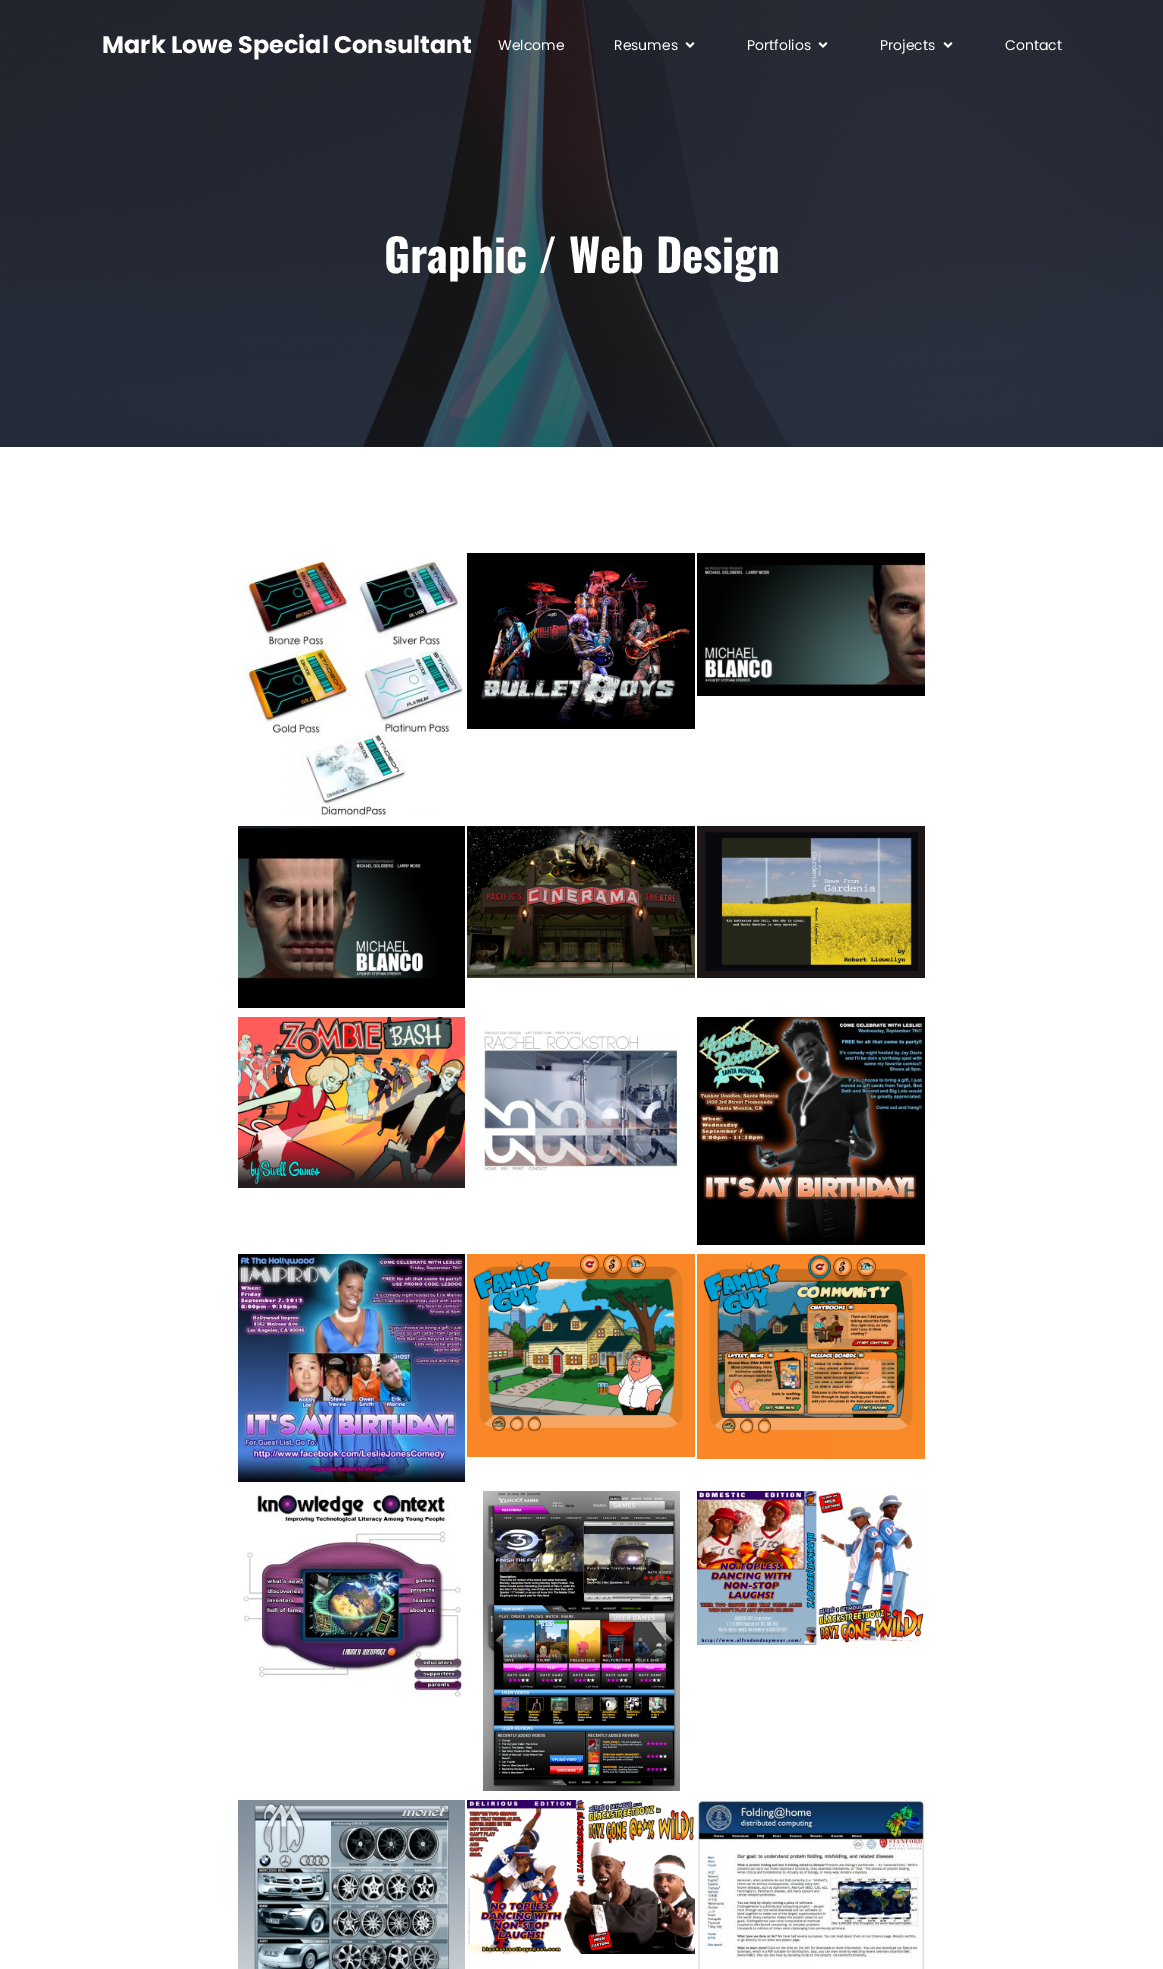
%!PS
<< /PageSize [1163 1969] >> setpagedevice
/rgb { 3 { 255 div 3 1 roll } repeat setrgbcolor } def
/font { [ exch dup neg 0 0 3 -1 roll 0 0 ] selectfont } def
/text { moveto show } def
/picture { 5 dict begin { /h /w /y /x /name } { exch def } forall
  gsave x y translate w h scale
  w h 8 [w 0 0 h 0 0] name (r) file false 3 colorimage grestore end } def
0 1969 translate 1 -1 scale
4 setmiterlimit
255 255 255 rgb
0 0 1163 1969 rectfill
(img_04.rgb) 0 0 1163 447 picture
(img_01.rgb) 685 42 10 6 picture
(img_02.rgb) 818 42 10 6 picture
(img_03.rgb) 943 42 10 6 picture
(img_05.rgb) 238 553 225 264 picture
(img_06.rgb) 467 553 228 176 picture
(img_07.rgb) 697 553 228 143 picture
(img_08.rgb) 238 826 227 182 picture
(img_09.rgb) 467 826 228 152 picture
(img_10.rgb) 697 826 228 152 picture
(img_11.rgb) 238 1017 227 171 picture
(img_12.rgb) 484 1031 193 140 picture
(img_13.rgb) 697 1017 228 228 picture
(img_14.rgb) 238 1254 227 228 picture
(img_15.rgb) 467 1254 228 203 picture
(img_16.rgb) 697 1254 228 205 picture
(img_17.rgb) 242 1491 223 207 picture
(img_18.rgb) 483 1491 197 300 picture
(img_19.rgb) 697 1491 227 154 picture
(img_20.rgb) 238 1800 227 169 picture
(img_21.rgb) 467 1800 228 154 picture
(img_22.rgb) 697 1800 228 169 picture
/Poppins-Bold 24 font
(Mark Lowe Special Consultant) 102 53 text
/Poppins-Regular 14 font
(Welcome) 498 50 text
(Resumes) 614 50 text
(Portfolios) 747 50 text
(Projects) 880 50 text
(Contact) 1005 50 text
/Oswald-Bold 45 font
(Graphic / Web Design) 384 273 text
showpage
